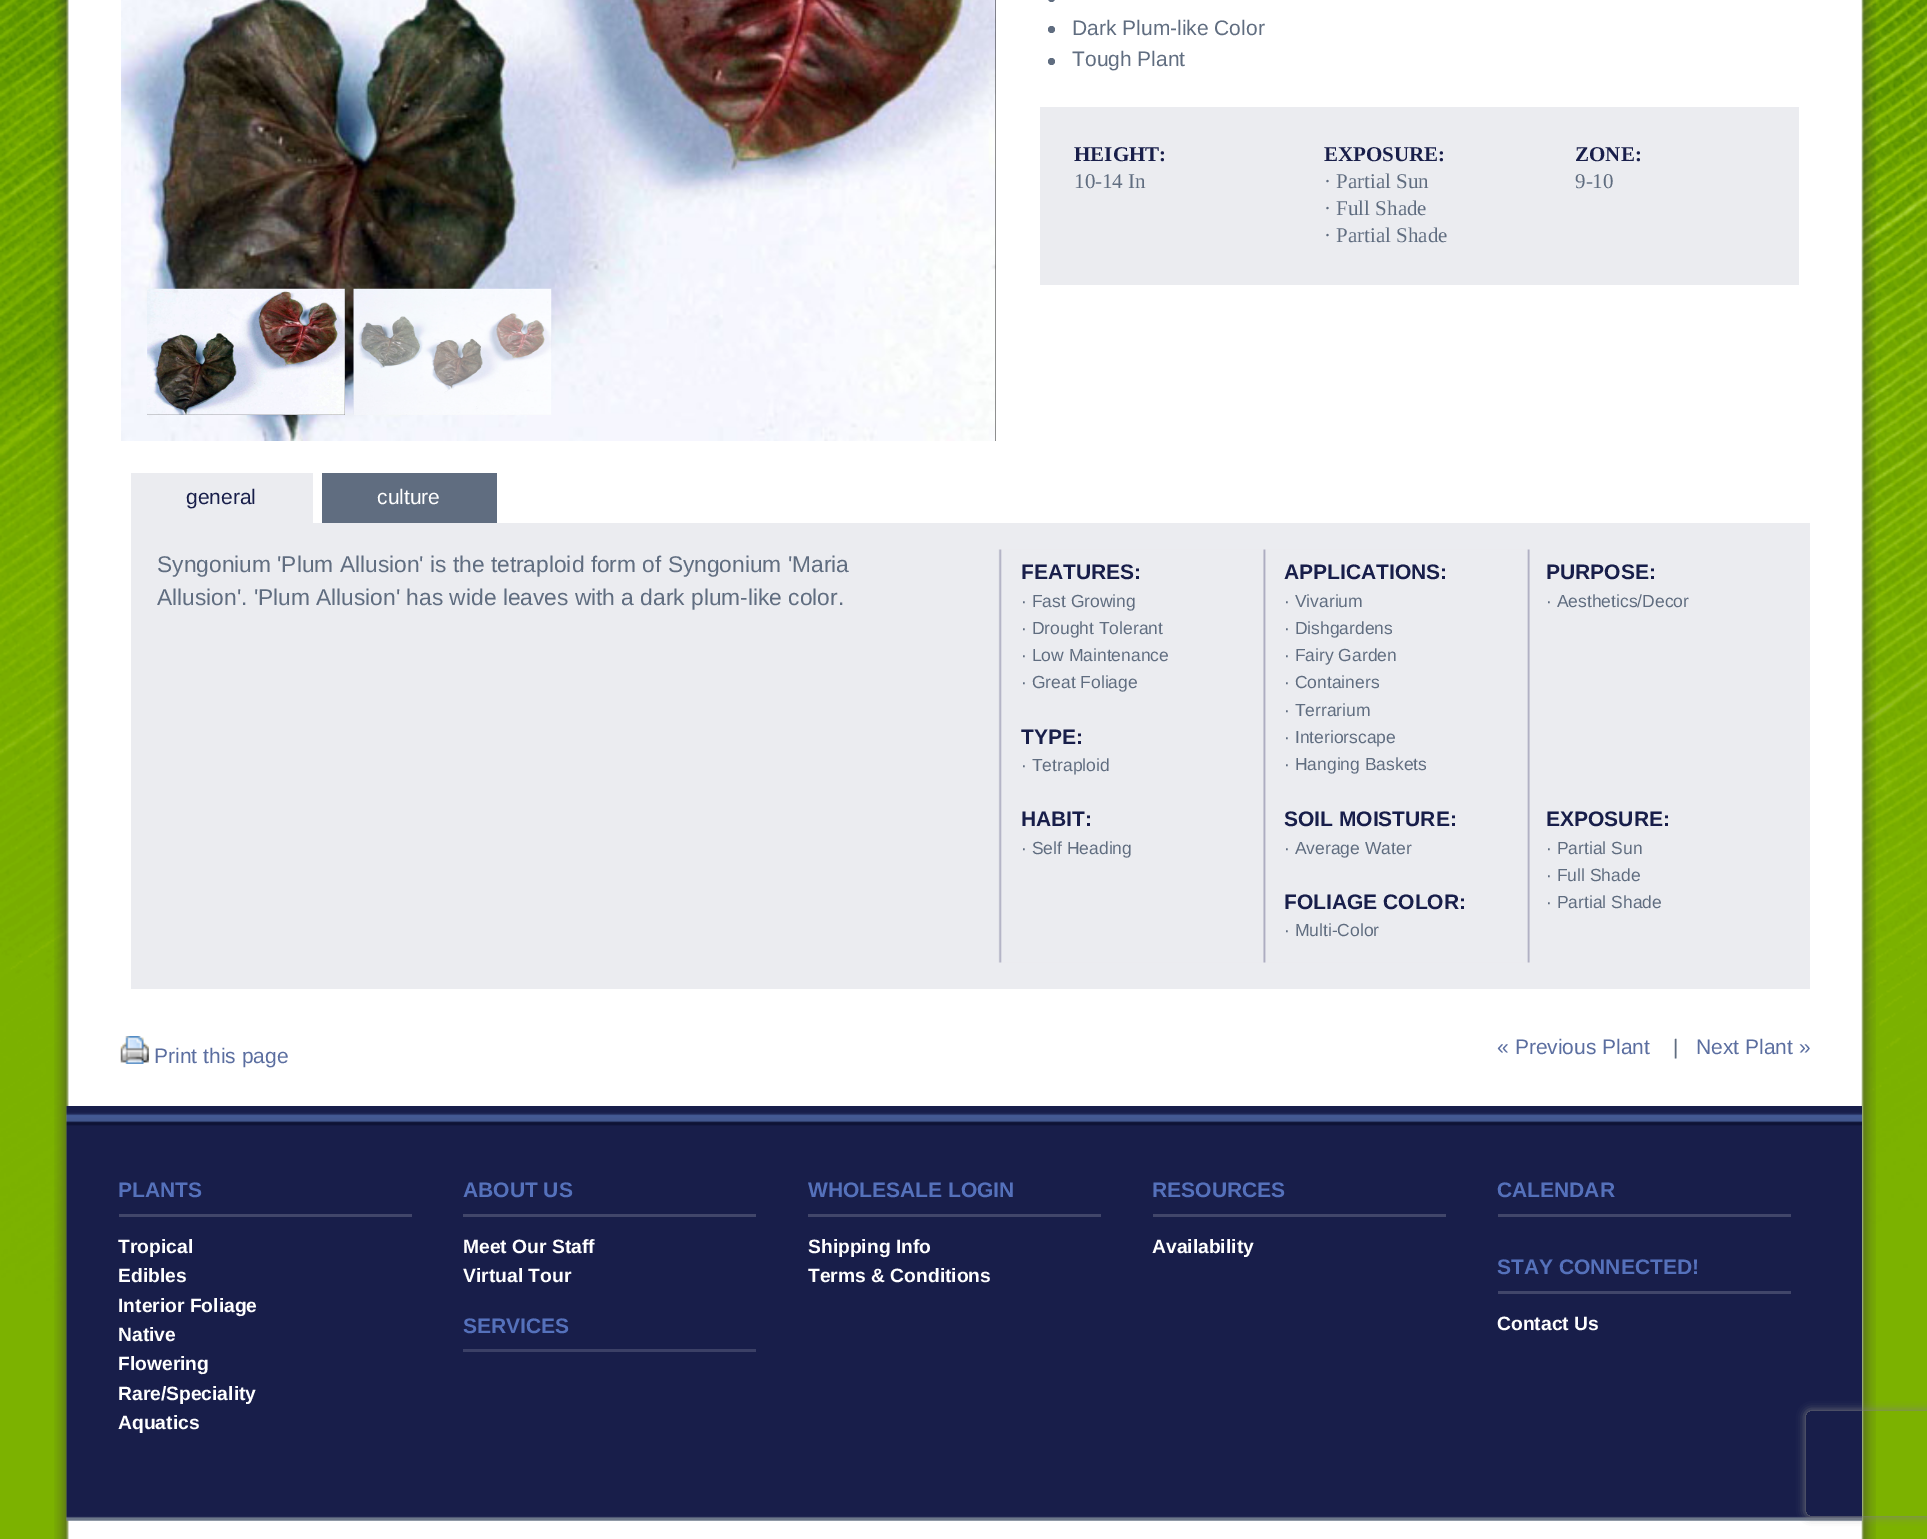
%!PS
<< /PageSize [1927 1539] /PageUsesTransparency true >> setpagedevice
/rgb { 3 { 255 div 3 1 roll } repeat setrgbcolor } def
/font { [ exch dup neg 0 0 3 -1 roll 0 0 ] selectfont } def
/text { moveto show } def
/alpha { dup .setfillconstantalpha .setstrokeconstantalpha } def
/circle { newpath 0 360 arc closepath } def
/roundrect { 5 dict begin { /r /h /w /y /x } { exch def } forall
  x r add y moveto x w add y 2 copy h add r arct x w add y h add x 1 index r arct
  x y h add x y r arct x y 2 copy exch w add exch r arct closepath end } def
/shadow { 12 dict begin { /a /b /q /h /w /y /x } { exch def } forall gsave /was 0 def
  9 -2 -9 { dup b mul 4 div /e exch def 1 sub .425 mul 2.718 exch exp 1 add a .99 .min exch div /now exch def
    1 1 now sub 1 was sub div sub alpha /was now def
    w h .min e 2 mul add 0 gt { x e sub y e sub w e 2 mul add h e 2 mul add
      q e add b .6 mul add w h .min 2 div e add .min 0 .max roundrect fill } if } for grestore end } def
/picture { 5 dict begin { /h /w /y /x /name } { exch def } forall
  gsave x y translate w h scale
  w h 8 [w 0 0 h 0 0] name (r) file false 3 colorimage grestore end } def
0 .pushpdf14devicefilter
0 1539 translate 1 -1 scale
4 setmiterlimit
124 178 0 rgb
0 0 1927 1539 rectfill
(img_01.rgb) 0 0 1927 1340 picture
(img_02.rgb) 54 0 1822 1539 picture
0 0 0 rgb
995 0 1 441 rectfill
(img_03.rgb) 121 0 875 441 picture
78 78 78 rgb
147 289 198 126 rectfill
(img_04.rgb) 147 288 198 127 picture
(img_05.rgb) 353 288 199 127 picture
0.5 alpha
255 255 255 rgb
354 289 197 126 rectfill
1 alpha
96 109 128 rgb
1048 -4 7 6 3.5 roundrect fill
1051.5 29.5 3.5 circle fill
1051.5 61.5 3.5 circle fill
235 236 240 rgb
1040 107 759 178 rectfill
131 473 182 50 rectfill
96 109 128 rgb
322 473 175 50 rectfill
235 236 240 rgb
131 523 1679 466 rectfill
(img_06.rgb) 998 549 532 414 picture
(img_07.rgb) 120 1036 29 28 picture
(img_08.rgb) 66 1106 1796 415 picture
65 70 106 rgb
119 1214 293 3 rectfill
463 1214 293 3 rectfill
59 64 102 rgb
463 1349 293 3 rectfill
65 70 106 rgb
808 1214 293 3 rectfill
1153 1214 293 3 rectfill
1498 1214 293 3 rectfill
1498 1291 293 3 rectfill
gsave
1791 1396 moveto 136 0 rlineto 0 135 rlineto -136 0 rlineto closepath 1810 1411 moveto 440 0 rlineto 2 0 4 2 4 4 rcurveto 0 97 rlineto 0 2 -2 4 -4 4 rcurveto -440 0 rlineto -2 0 -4 -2 -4 -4 rcurveto 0 -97 rlineto 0 -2 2 -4 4 -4 rcurveto closepath eoclip newpath
128 128 128 rgb
1806 1411 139 105 4 4.5 1 shadow
grestore
/LiberationSans-Regular 21 font
96 109 128 rgb
(Dark Plum-like Color) 1072 35 text
(Tough Plant) 1072 66 text
/LiberationSerif-Bold 21 font
24 30 74 rgb
(HEIGHT:) 1074 161 text
/LiberationSerif-Regular 21 font
96 109 128 rgb
(10-14 In) 1074 188 text
/LiberationSerif-Bold 21 font
24 30 74 rgb
(EXPOSURE:) 1324 161 text
/LiberationSerif-Regular 21 font
96 109 128 rgb
(· Partial Sun) 1324 188 text
(· Full Shade) 1324 215 text
(· Partial Shade) 1324 242 text
/LiberationSerif-Bold 21 font
24 30 74 rgb
(ZONE:) 1575 161 text
/LiberationSerif-Regular 21 font
96 109 128 rgb
(9-10) 1575 188 text
/LiberationSans-Regular 21 font
24 30 74 rgb
(general) 186 504 text
255 255 255 rgb
(culture) 377 504 text
/LiberationSans-Regular 22.75 font
96 109 128 rgb
(Syngonium 'Plum Allusion' is the tetraploid form of Syngonium 'Maria) 157 572 text
(Allusion'. 'Plum Allusion' has wide leaves with a dark plum-like color.) 157 605 text
/LiberationSans-Bold 21 font
24 30 74 rgb
(FEATURES:) 1021 579 text
/LiberationSans-Regular 17.5 font
96 109 128 rgb
(· Fast Growing) 1021 607 text
(· Drought Tolerant) 1021 634 text
(· Low Maintenance) 1021 661 text
(· Great Foliage) 1021 688 text
/LiberationSans-Bold 21 font
24 30 74 rgb
(APPLICATIONS:) 1284 579 text
/LiberationSans-Regular 17.5 font
96 109 128 rgb
(· Vivarium) 1284 607 text
(· Dishgardens) 1284 634 text
(· Fairy Garden) 1284 661 text
(· Containers) 1284 688 text
(· Terrarium) 1284 716 text
(· Interiorscape) 1284 743 text
(· Hanging Baskets) 1284 770 text
/LiberationSans-Bold 21 font
24 30 74 rgb
(PURPOSE:) 1546 579 text
/LiberationSans-Regular 17.5 font
96 109 128 rgb
(· Aesthetics/Decor) 1546 607 text
/LiberationSans-Bold 21 font
24 30 74 rgb
(TYPE:) 1021 744 text
/LiberationSans-Regular 17.5 font
96 109 128 rgb
(· Tetraploid) 1021 771 text
/LiberationSans-Bold 21 font
24 30 74 rgb
(HABIT:) 1021 826 text
/LiberationSans-Regular 17.5 font
96 109 128 rgb
(· Self Heading) 1021 854 text
/LiberationSans-Bold 21 font
24 30 74 rgb
(SOIL MOISTURE:) 1284 826 text
/LiberationSans-Regular 17.5 font
96 109 128 rgb
(· Average Water) 1284 854 text
/LiberationSans-Bold 21 font
24 30 74 rgb
(EXPOSURE:) 1546 826 text
/LiberationSans-Regular 17.5 font
96 109 128 rgb
(· Partial Sun) 1546 854 text
(· Full Shade) 1546 881 text
(· Partial Shade) 1546 908 text
/LiberationSans-Bold 21 font
24 30 74 rgb
(FOLIAGE COLOR:) 1284 909 text
/LiberationSans-Regular 17.5 font
96 109 128 rgb
(· Multi-Color) 1284 936 text
/LiberationSans-Regular 21 font
91 110 160 rgb
(Print this page) 154 1063 text
(« Previous Plant) 1497 1054 text
96 109 128 rgb
(|) 1673 1054 text
91 110 160 rgb
(Next Plant ») 1696 1054 text
/LiberationSans-Bold 21 font
85 113 187 rgb
(PLANTS) 118 1197 text
/LiberationSans-Bold 19.25 font
255 255 255 rgb
(Tropical) 118 1253 text
(Edibles) 118 1282 text
(Interior Foliage) 118 1312 text
(Native) 118 1341 text
(Flowering) 118 1370 text
(Rare/Speciality) 118 1400 text
(Aquatics) 118 1429 text
/LiberationSans-Bold 21 font
85 113 187 rgb
(ABOUT US) 463 1197 text
/LiberationSans-Bold 19.25 font
255 255 255 rgb
(Meet Our Staff) 463 1253 text
(Virtual Tour) 463 1282 text
/LiberationSans-Bold 21 font
85 113 187 rgb
(SERVICES) 463 1333 text
(WHOLESALE LOGIN) 808 1197 text
/LiberationSans-Bold 19.25 font
255 255 255 rgb
(Shipping Info) 808 1253 text
(Terms & Conditions) 808 1282 text
/LiberationSans-Bold 21 font
85 113 187 rgb
(RESOURCES) 1152 1197 text
/LiberationSans-Bold 19.25 font
255 255 255 rgb
(Availability) 1152 1253 text
/LiberationSans-Bold 21 font
85 113 187 rgb
(CALENDAR) 1497 1197 text
(STAY CONNECTED!) 1497 1274 text
/LiberationSans-Bold 19.25 font
255 255 255 rgb
(Contact Us) 1497 1330 text
.poppdf14devicefilter showpage
